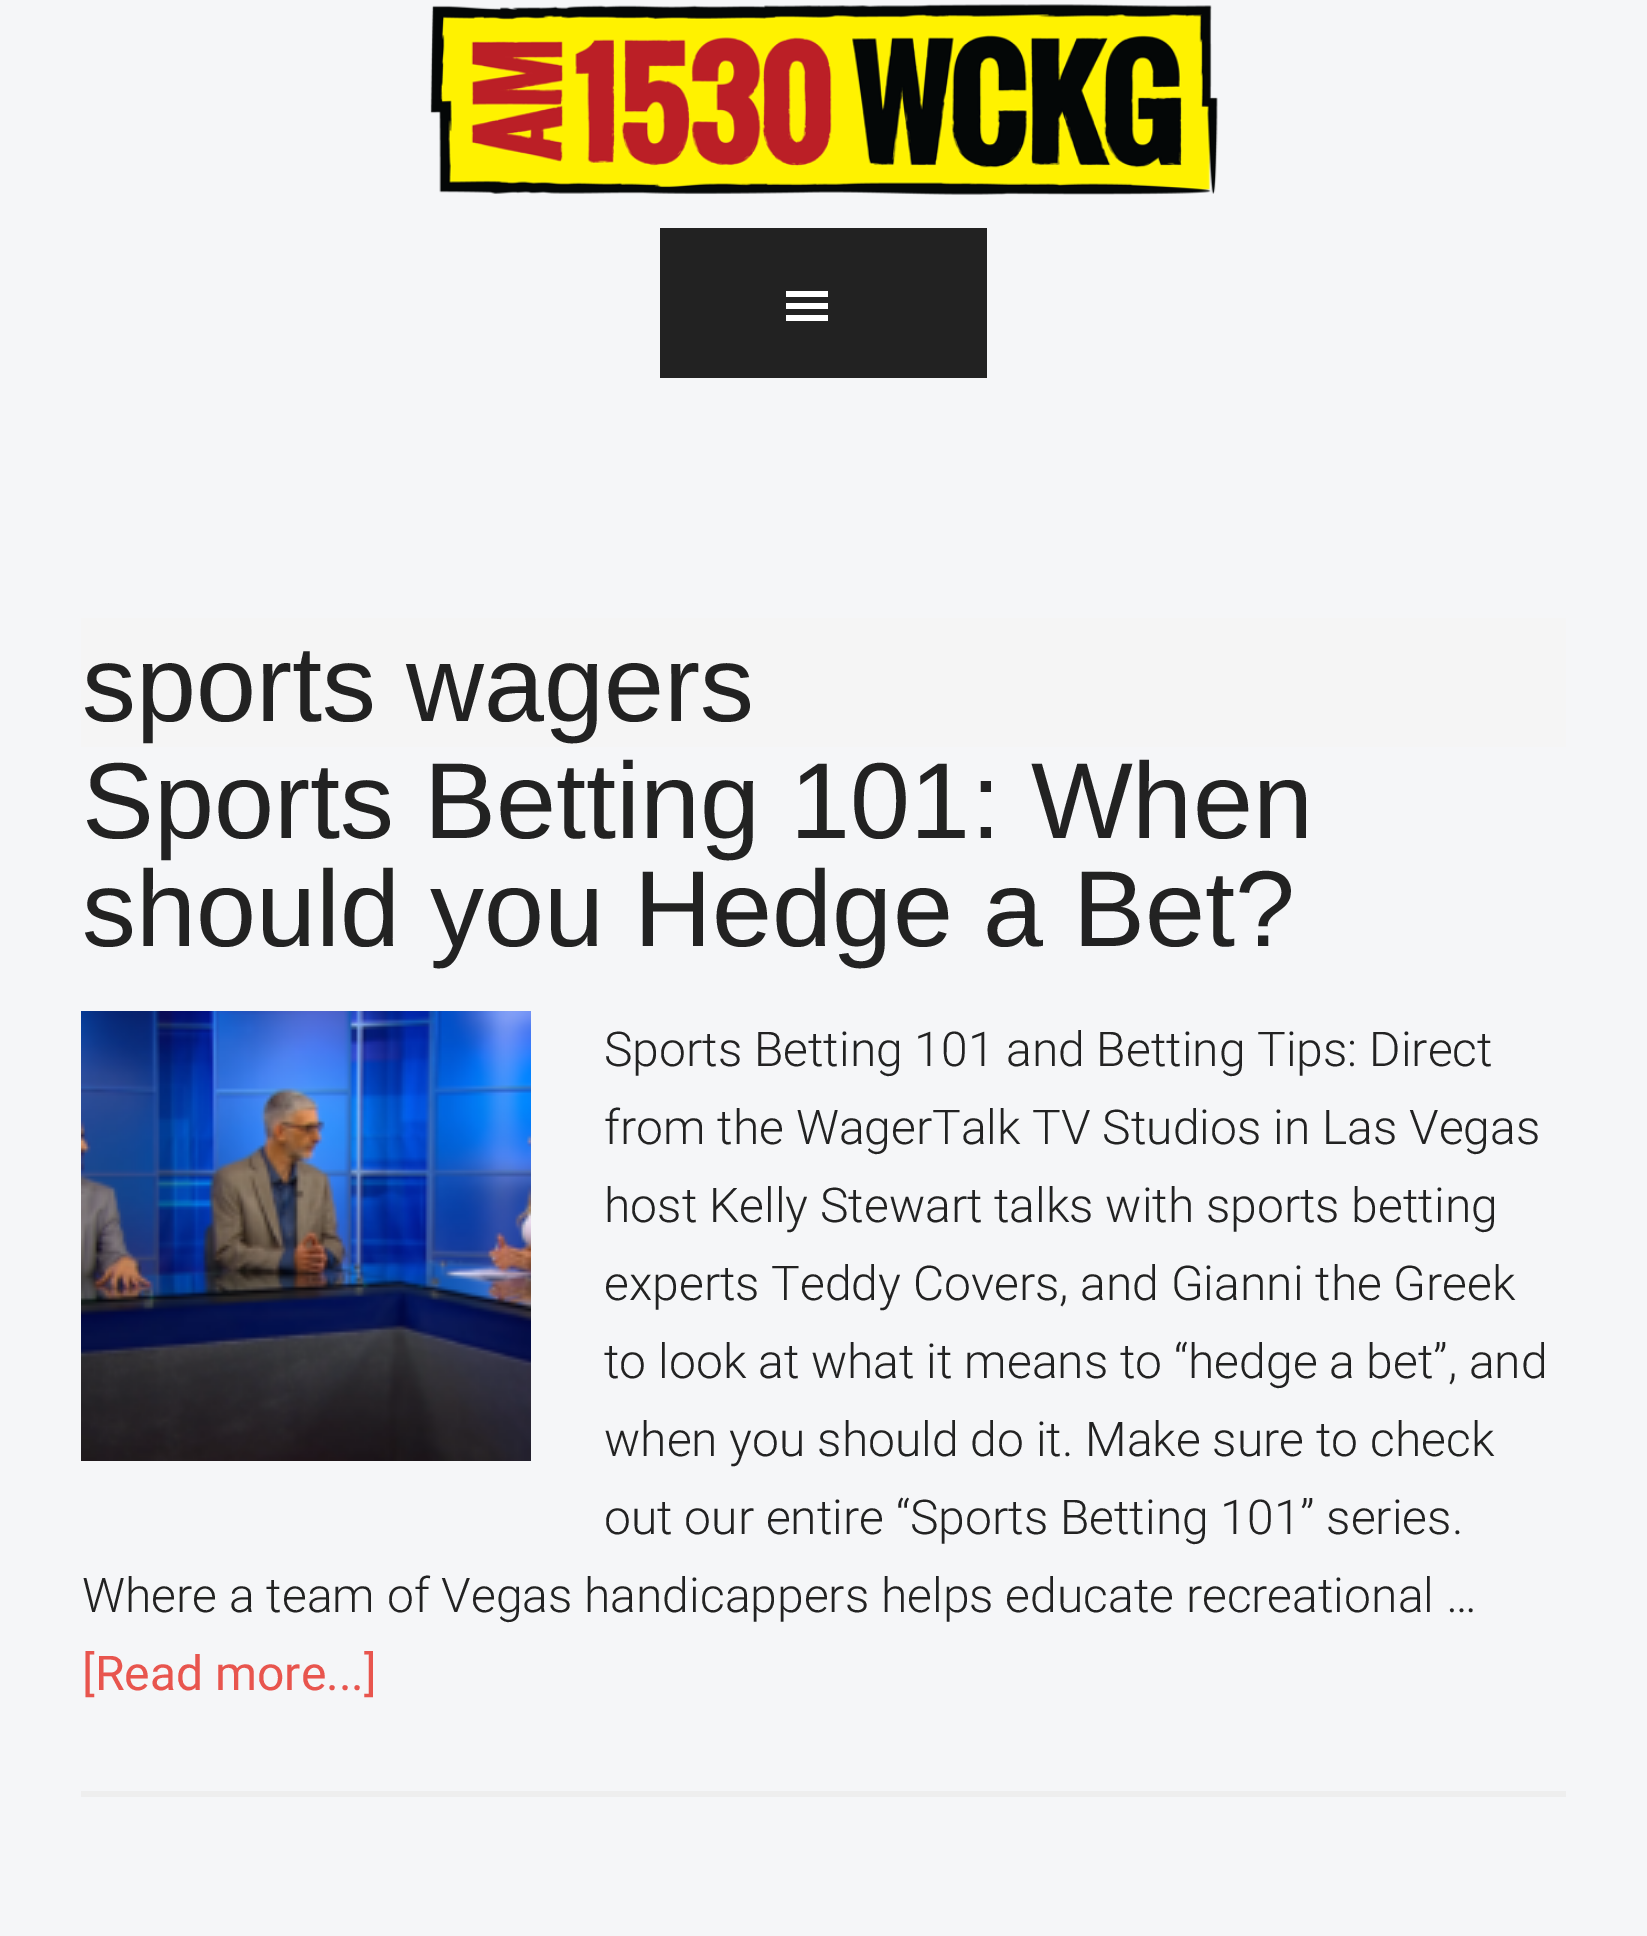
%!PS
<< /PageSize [1647 1936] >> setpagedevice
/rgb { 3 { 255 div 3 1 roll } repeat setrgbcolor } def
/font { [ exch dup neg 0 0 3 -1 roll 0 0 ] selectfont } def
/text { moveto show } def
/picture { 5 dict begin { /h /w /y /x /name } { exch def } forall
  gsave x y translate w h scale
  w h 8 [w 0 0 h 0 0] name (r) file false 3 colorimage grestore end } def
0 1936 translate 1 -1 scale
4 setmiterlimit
245 246 248 rgb
0 0 1647 1936 rectfill
(img_01.rgb) 430 4 788 191 picture
34 34 34 rgb
660 228 327 150 rectfill
255 255 255 rgb
786 321 moveto 42 0 rlineto 0 -6 rlineto -42 0 rlineto closepath 786 291 moveto 0 6 rlineto 42 0 rlineto 0 -6 rlineto closepath 786 309 moveto 42 0 rlineto 0 -6 rlineto -42 0 rlineto closepath fill
245 245 245 rgb
81 618 1485 129 rectfill
238 238 238 rgb
81 1791 1485 6 rectfill
(img_02.rgb) 81 1011 450 450 picture
/LiberationSans-Regular 108 font
34 34 34 rgb
(sports wagers) 82 721 text
(Sports Betting 101: When) 82 838 text
(should you Hedge a Bet?) 82 946 text
/Roboto-Light 48 font
(Sports Betting 101 and Betting Tips: Direct) 604 1066 text
(from the WagerTalk TV Studios in Las Vegas) 604 1144 text
(host Kelly Stewart talks with sports betting) 604 1222 text
(experts Teddy Covers, and Gianni the Greek) 604 1300 text
(to look at what it means to “hedge a bet”, and) 604 1378 text
(when you should do it. Make sure to check) 604 1456 text
(out our entire “Sports Betting 101” series.) 604 1534 text
(Where a team of Vegas handicappers helps educate recreational …) 82 1612 text
/Roboto-Regular 48 font
232 85 78 rgb
([Read more...]) 82 1690 text
showpage
